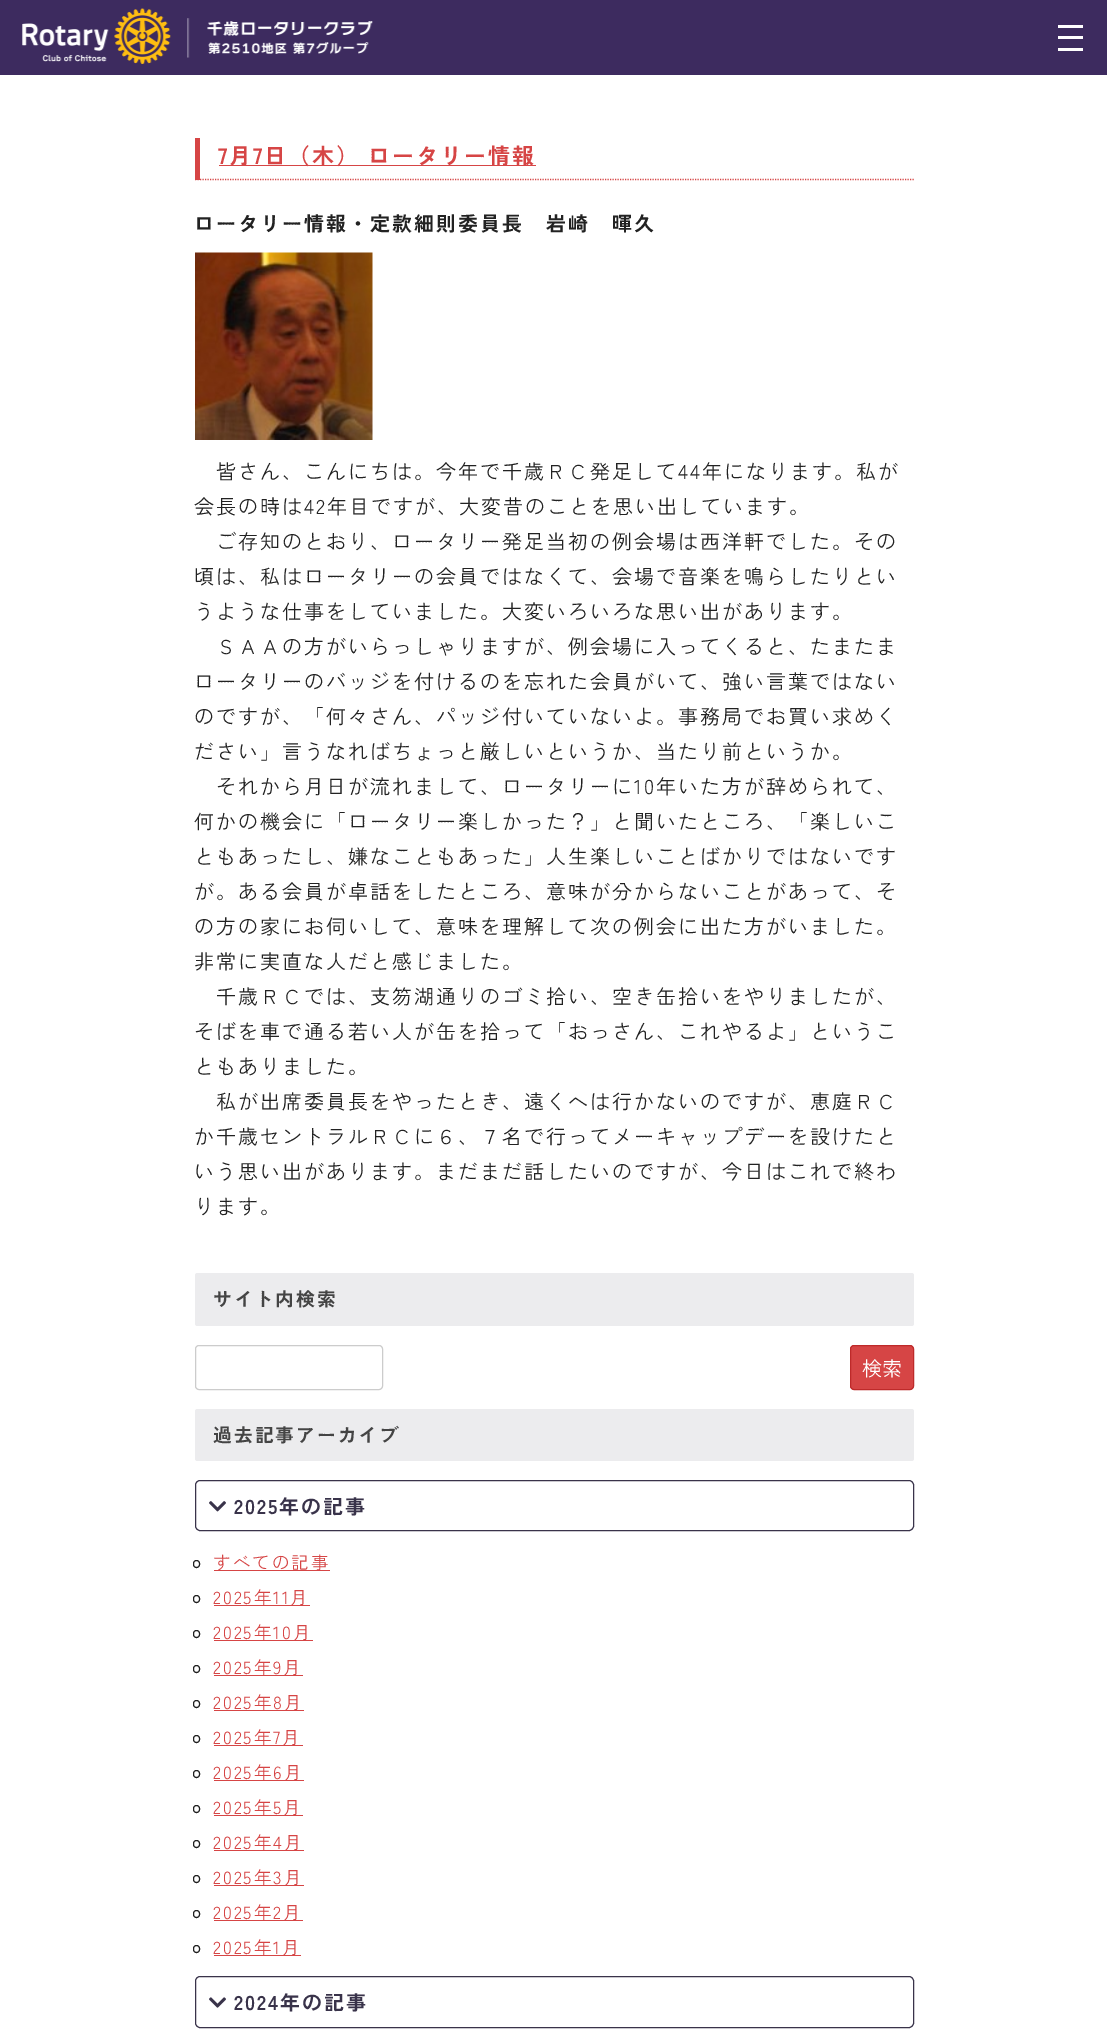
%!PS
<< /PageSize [1107 2029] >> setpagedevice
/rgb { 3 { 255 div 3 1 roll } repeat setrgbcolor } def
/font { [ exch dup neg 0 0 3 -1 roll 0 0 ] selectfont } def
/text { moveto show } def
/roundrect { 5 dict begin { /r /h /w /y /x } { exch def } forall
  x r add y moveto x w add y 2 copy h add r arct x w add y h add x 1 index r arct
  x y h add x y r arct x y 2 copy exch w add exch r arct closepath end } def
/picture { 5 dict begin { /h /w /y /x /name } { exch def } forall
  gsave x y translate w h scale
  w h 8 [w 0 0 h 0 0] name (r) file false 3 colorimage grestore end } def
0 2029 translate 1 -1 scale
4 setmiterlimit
255 255 255 rgb
0 0 1107 2029 rectfill
61 43 95 rgb
0 0 1107 75 rectfill
(img_01.rgb) 22 8 351 56 picture
255 255 255 rgb
1058 25 25 3 rectfill
1058 36 25 3 rectfill
1058 48 25 3 rectfill
214 69 69 rgb
1.2 setlinewidth
[1.25 1.25] 0 setdash
195 179.5 moveto 719 0 rlineto stroke
195 138 5 42 rectfill
219 165 317 1 rectfill
(img_02.rgb) 195 252 178 188 picture
236 236 238 rgb
195 1273 719 53 2.5 roundrect fill
204 204 204 rgb
1 setlinewidth
[] 0 setdash
195.5 1345.5 187 44 3.5 roundrect stroke
214 69 69 rgb
850.5 1345.5 63 44 3.5 roundrect gsave fill grestore
190 42 42 rgb
stroke
236 236 238 rgb
195 1409 719 52 2.5 roundrect fill
57 51 74 rgb
195.5 1480.5 718 50 4.5 roundrect stroke
(img_03.rgb) 209 1501 17 11 picture
34 34 34 rgb
193.5 1560.5 6 7 3 roundrect stroke
214 69 69 rgb
214 1570 116 1 rectfill
34 34 34 rgb
193.5 1595.5 6 7 3 roundrect stroke
214 69 69 rgb
214 1605 96 1 rectfill
34 34 34 rgb
193.5 1630.5 6 7 3 roundrect stroke
214 69 69 rgb
214 1640 99 1 rectfill
34 34 34 rgb
193.5 1665.5 6 7 3 roundrect stroke
214 69 69 rgb
214 1675 89 1 rectfill
34 34 34 rgb
193.5 1700.5 6 7 3 roundrect stroke
214 69 69 rgb
214 1710 90 1 rectfill
34 34 34 rgb
193.5 1735.5 6 7 3 roundrect stroke
214 69 69 rgb
214 1745 89 1 rectfill
34 34 34 rgb
193.5 1770.5 6 7 3 roundrect stroke
214 69 69 rgb
214 1780 90 1 rectfill
34 34 34 rgb
193.5 1805.5 6 7 3 roundrect stroke
214 69 69 rgb
214 1815 89 1 rectfill
34 34 34 rgb
193.5 1840.5 6 7 3 roundrect stroke
214 69 69 rgb
214 1850 90 1 rectfill
34 34 34 rgb
193.5 1875.5 6 7 3 roundrect stroke
214 69 69 rgb
214 1885 90 1 rectfill
34 34 34 rgb
193.5 1910.5 6 7 3 roundrect stroke
214 69 69 rgb
214 1920 89 1 rectfill
34 34 34 rgb
193.5 1945.5 6 7 3 roundrect stroke
214 69 69 rgb
214 1955 87 1 rectfill
57 51 74 rgb
195.5 1976.5 718 51 4.5 roundrect stroke
(img_04.rgb) 209 1997 17 11 picture
/ZenKakuGothicAntique-Bold 22 font
214 69 69 rgb
218 164 moveto 2 0 (7月7日（木） ロータリー情報) ashow
/ZenKakuGothicAntique-Bold 20 font
34 34 34 rgb
194 231 moveto 2 0 (ロータリー情報・定款細則委員長　岩崎　暉久) ashow
/ZenKakuGothicAntique-Regular 20 font
216 479 moveto 2 0 (皆さん、こんにちは。今年で千歳ＲＣ発足して44年になります。私が) ashow
194 514 moveto 2 0 (会長の時は42年目ですが、大変昔のことを思い出しています。) ashow
216 549 moveto 2 0 (ご存知のとおり、ロータリー発足当初の例会場は西洋軒でした。その) ashow
194 584 moveto 2 0 (頃は、私はロータリーの会員ではなくて、会場で音楽を鳴らしたりとい) ashow
194 619 moveto 2 0 (うような仕事をしていました。大変いろいろな思い出があります。) ashow
216 654 moveto 2 0 (ＳＡＡの方がいらっしゃりますが、例会場に入ってくると、たまたま) ashow
194 689 moveto 2 0 (ロータリーのバッジを付けるのを忘れた会員がいて、強い言葉ではない) ashow
194 724 moveto 2 0 (のですが、「何々さん、パッジ付いていないよ。事務局でお買い求めく) ashow
194 759 moveto 2 0 (ださい」言うなればちょっと厳しいというか、当たり前というか。) ashow
216 794 moveto 2 0 (それから月日が流れまして、ロータリーに10年いた方が辞められて、) ashow
194 829 moveto 2 0 (何かの機会に「ロータリー楽しかった？」と聞いたところ、「楽しいこ) ashow
194 864 moveto 2 0 (ともあったし、嫌なこともあった」人生楽しいことばかりではないです) ashow
194 899 moveto 2 0 (が。ある会員が卓話をしたところ、意味が分からないことがあって、そ) ashow
194 934 moveto 2 0 (の方の家にお伺いして、意味を理解して次の例会に出た方がいました。) ashow
194 969 moveto 2 0 (非常に実直な人だと感じました。) ashow
216 1004 moveto 2 0 (千歳ＲＣでは、支笏湖通りのゴミ拾い、空き缶拾いをやりましたが、) ashow
194 1039 moveto 2 0 (そばを車で通る若い人が缶を拾って「おっさん、これやるよ」というこ) ashow
194 1074 moveto 2 0 (ともありました。) ashow
216 1109 moveto 2 0 (私が出席委員長をやったとき、遠くへは行かないのですが、恵庭ＲＣ) ashow
194 1144 moveto 2 0 (か千歳セントラルＲＣに６、７名で行ってメーキャップデーを設けたと) ashow
194 1179 moveto 2 0 (いう思い出があります。まだまだ話したいのですが、今日はこれで終わ) ashow
194 1214 moveto 2 0 (ります。) ashow
/ZenKakuGothicAntique-Bold 18.75 font
68 68 68 rgb
213 1306 moveto 2 0 (サイト内検索) ashow
/ZenKakuGothicAntique-Regular 20 font
255 255 255 rgb
(検索) 862 1376 text
/ZenKakuGothicAntique-Bold 18.75 font
68 68 68 rgb
213 1442 moveto 2 0 (過去記事アーカイブ) ashow
/ZenKakuGothicAntique-Bold 20 font
57 51 74 rgb
234 1514 moveto 2 0 (2025年の記事) ashow
/ZenKakuGothicAntique-Regular 17.5 font
214 69 69 rgb
213 1569 moveto 2 0 (すべての記事) ashow
213 1604 moveto 2 0 (2025年11月) ashow
213 1639 moveto 2 0 (2025年10月) ashow
213 1674 moveto 2 0 (2025年9月) ashow
213 1709 moveto 2 0 (2025年8月) ashow
213 1744 moveto 2 0 (2025年7月) ashow
213 1779 moveto 2 0 (2025年6月) ashow
213 1814 moveto 2 0 (2025年5月) ashow
213 1849 moveto 2 0 (2025年4月) ashow
213 1884 moveto 2 0 (2025年3月) ashow
213 1919 moveto 2 0 (2025年2月) ashow
213 1954 moveto 2 0 (2025年1月) ashow
/ZenKakuGothicAntique-Bold 20 font
57 51 74 rgb
234 2010 moveto 2 0 (2024年の記事) ashow
showpage
